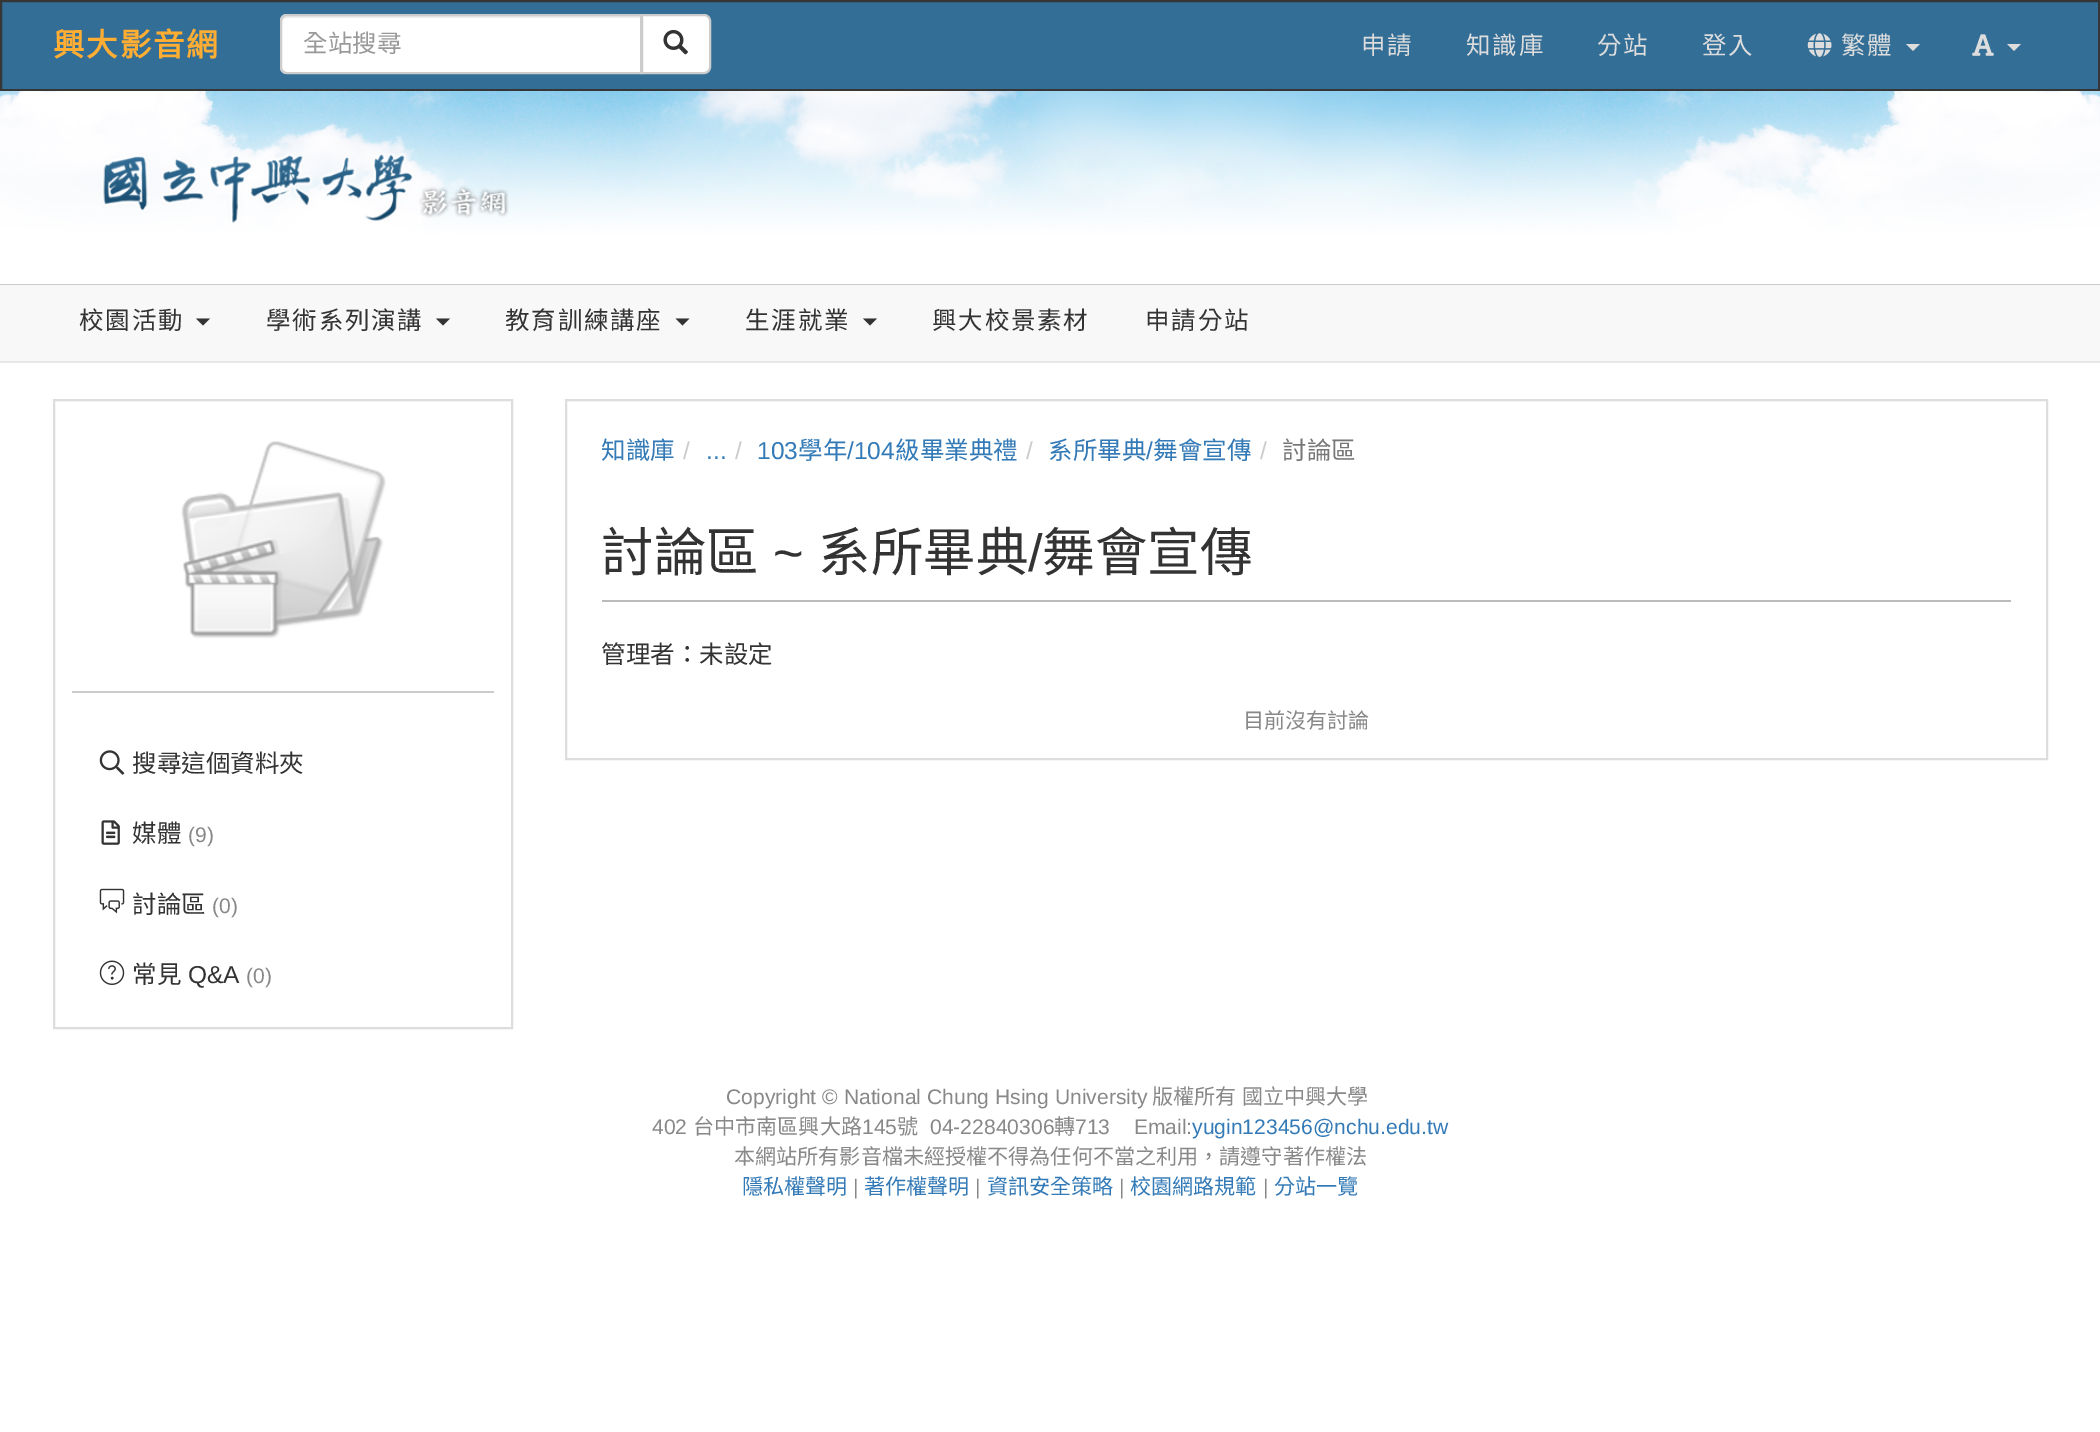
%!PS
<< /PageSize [2100 1432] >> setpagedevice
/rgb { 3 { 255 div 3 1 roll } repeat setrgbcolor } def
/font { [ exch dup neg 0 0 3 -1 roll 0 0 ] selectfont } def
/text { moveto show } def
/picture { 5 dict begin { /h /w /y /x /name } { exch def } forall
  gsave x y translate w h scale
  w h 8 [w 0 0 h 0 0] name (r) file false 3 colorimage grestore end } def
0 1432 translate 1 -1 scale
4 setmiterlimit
255 255 255 rgb
0 0 2100 1432 rectfill
51 110 150 rgb
1 1 moveto 2098 0 rlineto 0 89 rlineto -2098 0 rlineto closepath gsave fill grestore
54 54 54 rgb
2 setlinewidth
stroke
255 255 255 rgb
287 14 moveto 355 0 rlineto 0 60 rlineto -355 0 rlineto -4 0 -7 -3 -7 -7 rcurveto 0 -46 rlineto 0 -4 3 -7 7 -7 rcurveto closepath fill
236 236 236 rgb
287 18 moveto 353 0 rlineto 0 54 rlineto 1 0 rlineto 0 -56 rlineto -354 0 rlineto -4 0 -5 4 -5 7 rcurveto 0 -3 2 -5 5 -5 rcurveto closepath fill
204 204 204 rgb
287 15 moveto 354 0 rlineto 0 58 rlineto -354 0 rlineto -3.5 0 -6 -2.5 -6 -6 rcurveto 0 -46 rlineto 0 -3.5 2.5 -6 6 -6 rcurveto closepath stroke
255 255 255 rgb
642 15 moveto 62 0 rlineto 3.5 0 6 2.5 6 6 rcurveto 0 46 rlineto 0 3.5 -2.5 6 -6 6 rcurveto -62 0 rlineto closepath gsave fill grestore
204 204 204 rgb
stroke
(img_01.rgb) 663 29 25 26 picture
(img_02.rgb) 1807 33 25 24 picture
221 221 221 rgb
1906 44 moveto 14 0 rlineto -7 7 rlineto closepath fill
(img_03.rgb) 1972 34 22 22 picture
2007 44 moveto 14 0 rlineto -7 7 rlineto closepath fill
(img_04.rgb) 0 91 2100 193 picture
204 204 204 rgb
0 284 2100 1 rectfill
(img_05.rgb) 102 153 407 70 picture
248 248 248 rgb
0 285 2100 76 rectfill
231 231 231 rgb
0 361 2100 2 rectfill
51 51 51 rgb
196 318.5 moveto 14 0 rlineto -7 7 rlineto closepath fill
436 318.5 moveto 14 0 rlineto -7 7 rlineto closepath fill
675.5 318.5 moveto 14 0 rlineto -7 7 rlineto closepath fill
863 318.5 moveto 14 0 rlineto -7 7 rlineto closepath fill
221 221 221 rgb
566 400 1481 359 rectstroke
187 187 187 rgb
602 600 1409 2 rectfill
221 221 221 rgb
54 400 458 628 rectstroke
(img_06.rgb) 181 441 205 198 picture
204 204 204 rgb
72 691 422 2 rectfill
(img_07.rgb) 99 750 26 25 picture
(img_08.rgb) 101 820 19 25 picture
(img_09.rgb) 99 888 26 26 picture
(img_10.rgb) 99 960 26 25 picture
/NotoSansCJKTC-Bold 31.5 font
255 173 51 rgb
53 56 moveto 1.75 0 (興大影音網) ashow
/NotoSansCJKTC-Regular 24.5 font
153 153 153 rgb
(全站搜尋) 303 52 text
221 221 221 rgb
1361 54 moveto 1.75 0 (申請) ashow
1466 54 moveto 1.75 0 (知識庫) ashow
1597 54 moveto 1.75 0 (分站) ashow
1702 54 moveto 1.75 0 (登入) ashow
1841 54 moveto 1.75 0 (繁體) ashow
51 51 51 rgb
79 329 moveto 1.75 0 (校園活動) ashow
266 329 moveto 1.75 0 (學術系列演講) ashow
505 329 moveto 1.75 0 (教育訓練講座) ashow
745 329 moveto 1.75 0 (生涯就業) ashow
932 329 moveto 1.75 0 (興大校景素材) ashow
1145 329 moveto 1.75 0 (申請分站) ashow
51 122 183 rgb
(知識庫) 601 459 text
/LiberationSans-Regular 24.5 font
204 204 204 rgb
(/) 683 459 text
51 122 183 rgb
(...) 706 459 text
204 204 204 rgb
(/) 735 459 text
51 122 183 rgb
(103) 757 459 text
/NotoSansCJKTC-Regular 24.5 font
(學年) 798 459 text
/LiberationSans-Regular 24.5 font
(/104) 847 459 text
/NotoSansCJKTC-Regular 24.5 font
(級畢業典禮) 895 459 text
/LiberationSans-Regular 24.5 font
204 204 204 rgb
(/) 1026 459 text
/NotoSansCJKTC-Regular 24.5 font
51 122 183 rgb
(系所畢典) 1048 459 text
/LiberationSans-Regular 24.5 font
(/) 1146 459 text
/NotoSansCJKTC-Regular 24.5 font
(舞會宣傳) 1153 459 text
/LiberationSans-Regular 24.5 font
204 204 204 rgb
(/) 1260 459 text
/NotoSansCJKTC-Regular 24.5 font
119 119 119 rgb
(討論區) 1282 459 text
/NotoSansCJKTC-Regular 52.5 font
51 51 51 rgb
(討論區) 601 571 text
/LiberationSans-Regular 52.5 font
(~) 773 571 text
/NotoSansCJKTC-Regular 52.5 font
(系所畢典) 818 571 text
/LiberationSans-Regular 52.5 font
(/) 1028 571 text
/NotoSansCJKTC-Regular 52.5 font
(舞會宣傳) 1042 571 text
/NotoSansCJKTC-Regular 24.5 font
(管理者：未設定) 601 663 text
/NotoSansCJKTC-Regular 21.1 font
136 136 136 rgb
(目前沒有討論) 1243 728 text
/NotoSansCJKTC-Regular 24.5 font
51 51 51 rgb
(搜尋這個資料夾) 132 772 text
(媒體) 132 842 text
/LiberationSans-Regular 21.1 font
136 136 136 rgb
(\(9\)) 188 842 text
/NotoSansCJKTC-Regular 24.5 font
51 51 51 rgb
(討論區) 132 913 text
/LiberationSans-Regular 21.1 font
136 136 136 rgb
(\(0\)) 212 913 text
/NotoSansCJKTC-Regular 24.5 font
51 51 51 rgb
(常見) 132 983 text
/LiberationSans-Regular 24.5 font
(Q&A) 188 983 text
/LiberationSans-Regular 21.1 font
136 136 136 rgb
(\(0\)) 246 983 text
(Copyright © National Chung Hsing University) 726 1104 text
/NotoSansCJKTC-Regular 21.1 font
(版權所有) 1152 1104 text
(國立中興大學) 1242 1104 text
/LiberationSans-Regular 21.1 font
(402) 652 1134 text
/NotoSansCJKTC-Regular 21.1 font
(台中市南區興大路) 693 1134 text
/LiberationSans-Regular 21.1 font
(145) 862 1134 text
/NotoSansCJKTC-Regular 21.1 font
(號) 897 1134 text
/LiberationSans-Regular 21.1 font
(04-22840306) 930 1134 text
/NotoSansCJKTC-Regular 21.1 font
(轉) 1054 1134 text
/LiberationSans-Regular 21.1 font
(713    Email:) 1075 1134 text
51 122 183 rgb
(yugin123456@nchu.edu.tw) 1192 1134 text
/NotoSansCJKTC-Regular 21.1 font
136 136 136 rgb
(本網站所有影音檔未經授權不得為任何不當之利用，請遵守著作權法) 734 1164 text
51 122 183 rgb
(隱私權聲明) 742 1194 text
/LiberationSans-Regular 21.1 font
136 136 136 rgb
(|) 853 1194 text
/NotoSansCJKTC-Regular 21.1 font
51 122 183 rgb
(著作權聲明) 864 1194 text
/LiberationSans-Regular 21.1 font
136 136 136 rgb
(|) 975 1194 text
/NotoSansCJKTC-Regular 21.1 font
51 122 183 rgb
(資訊安全策略) 987 1194 text
/LiberationSans-Regular 21.1 font
136 136 136 rgb
(|) 1119 1194 text
/NotoSansCJKTC-Regular 21.1 font
51 122 183 rgb
(校園網路規範) 1130 1194 text
/LiberationSans-Regular 21.1 font
136 136 136 rgb
(|) 1263 1194 text
/NotoSansCJKTC-Regular 21.1 font
51 122 183 rgb
(分站一覽) 1274 1194 text
showpage
